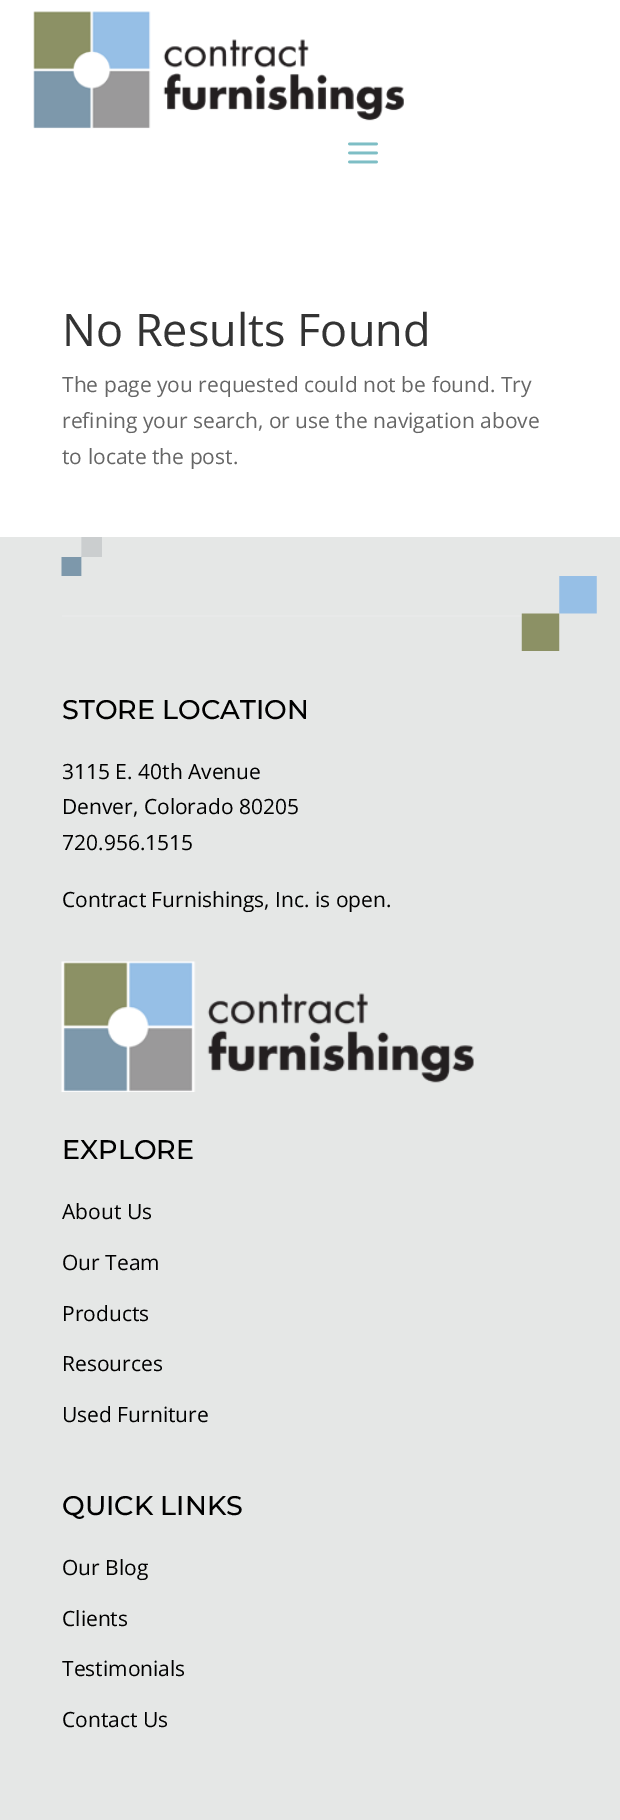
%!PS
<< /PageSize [620 1820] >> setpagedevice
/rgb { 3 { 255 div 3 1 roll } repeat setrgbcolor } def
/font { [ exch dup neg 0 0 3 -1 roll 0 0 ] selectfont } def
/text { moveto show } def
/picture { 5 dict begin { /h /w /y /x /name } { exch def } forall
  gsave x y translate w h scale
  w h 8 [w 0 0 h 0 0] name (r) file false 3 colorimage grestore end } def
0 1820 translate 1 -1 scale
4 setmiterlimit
255 255 255 rgb
0 0 620 1820 rectfill
(img_01.rgb) 33 11 371 118 picture
(img_02.rgb) 348 142 30 22 picture
229 231 230 rgb
0 537 620 1283 rectfill
(img_03.rgb) 61 537 41 39 picture
232 233 233 rgb
62 615 498 2 rectfill
(img_04.rgb) 521 576 76 75 picture
(img_05.rgb) 61 961 413 131 picture
/OpenSans-Regular 45 font
51 51 51 rgb
(No Results Found) 62 346 text
/OpenSans-Regular 21 font
102 102 102 rgb
(The page you requested could not be found. Try) 62 392 text
(refining your search, or use the navigation above) 62 428 text
(to locate the post.) 62 464 text
/Montserrat-Medium 27 font
0 0 0 rgb
(STORE LOCATION) 62 719 text
/OpenSans-Regular 21 font
(3115 E. 40th Avenue) 62 779 text
(Denver, Colorado 80205) 62 814 text
(720.956.1515) 62 850 text
(Contract Furnishings, Inc. is open.) 62 907 text
/Montserrat-Medium 27 font
(EXPLORE) 62 1159 text
/OpenSans-Regular 21 font
(About Us) 62 1219 text
(Our Team) 62 1270 text
(Products) 62 1321 text
(Resources) 62 1371 text
(Used Furniture) 62 1422 text
/Montserrat-Medium 27 font
(QUICK LINKS) 62 1515 text
/OpenSans-Regular 21 font
(Our Blog) 62 1575 text
(Clients) 62 1626 text
(Testimonials) 62 1676 text
(Contact Us) 62 1727 text
showpage
